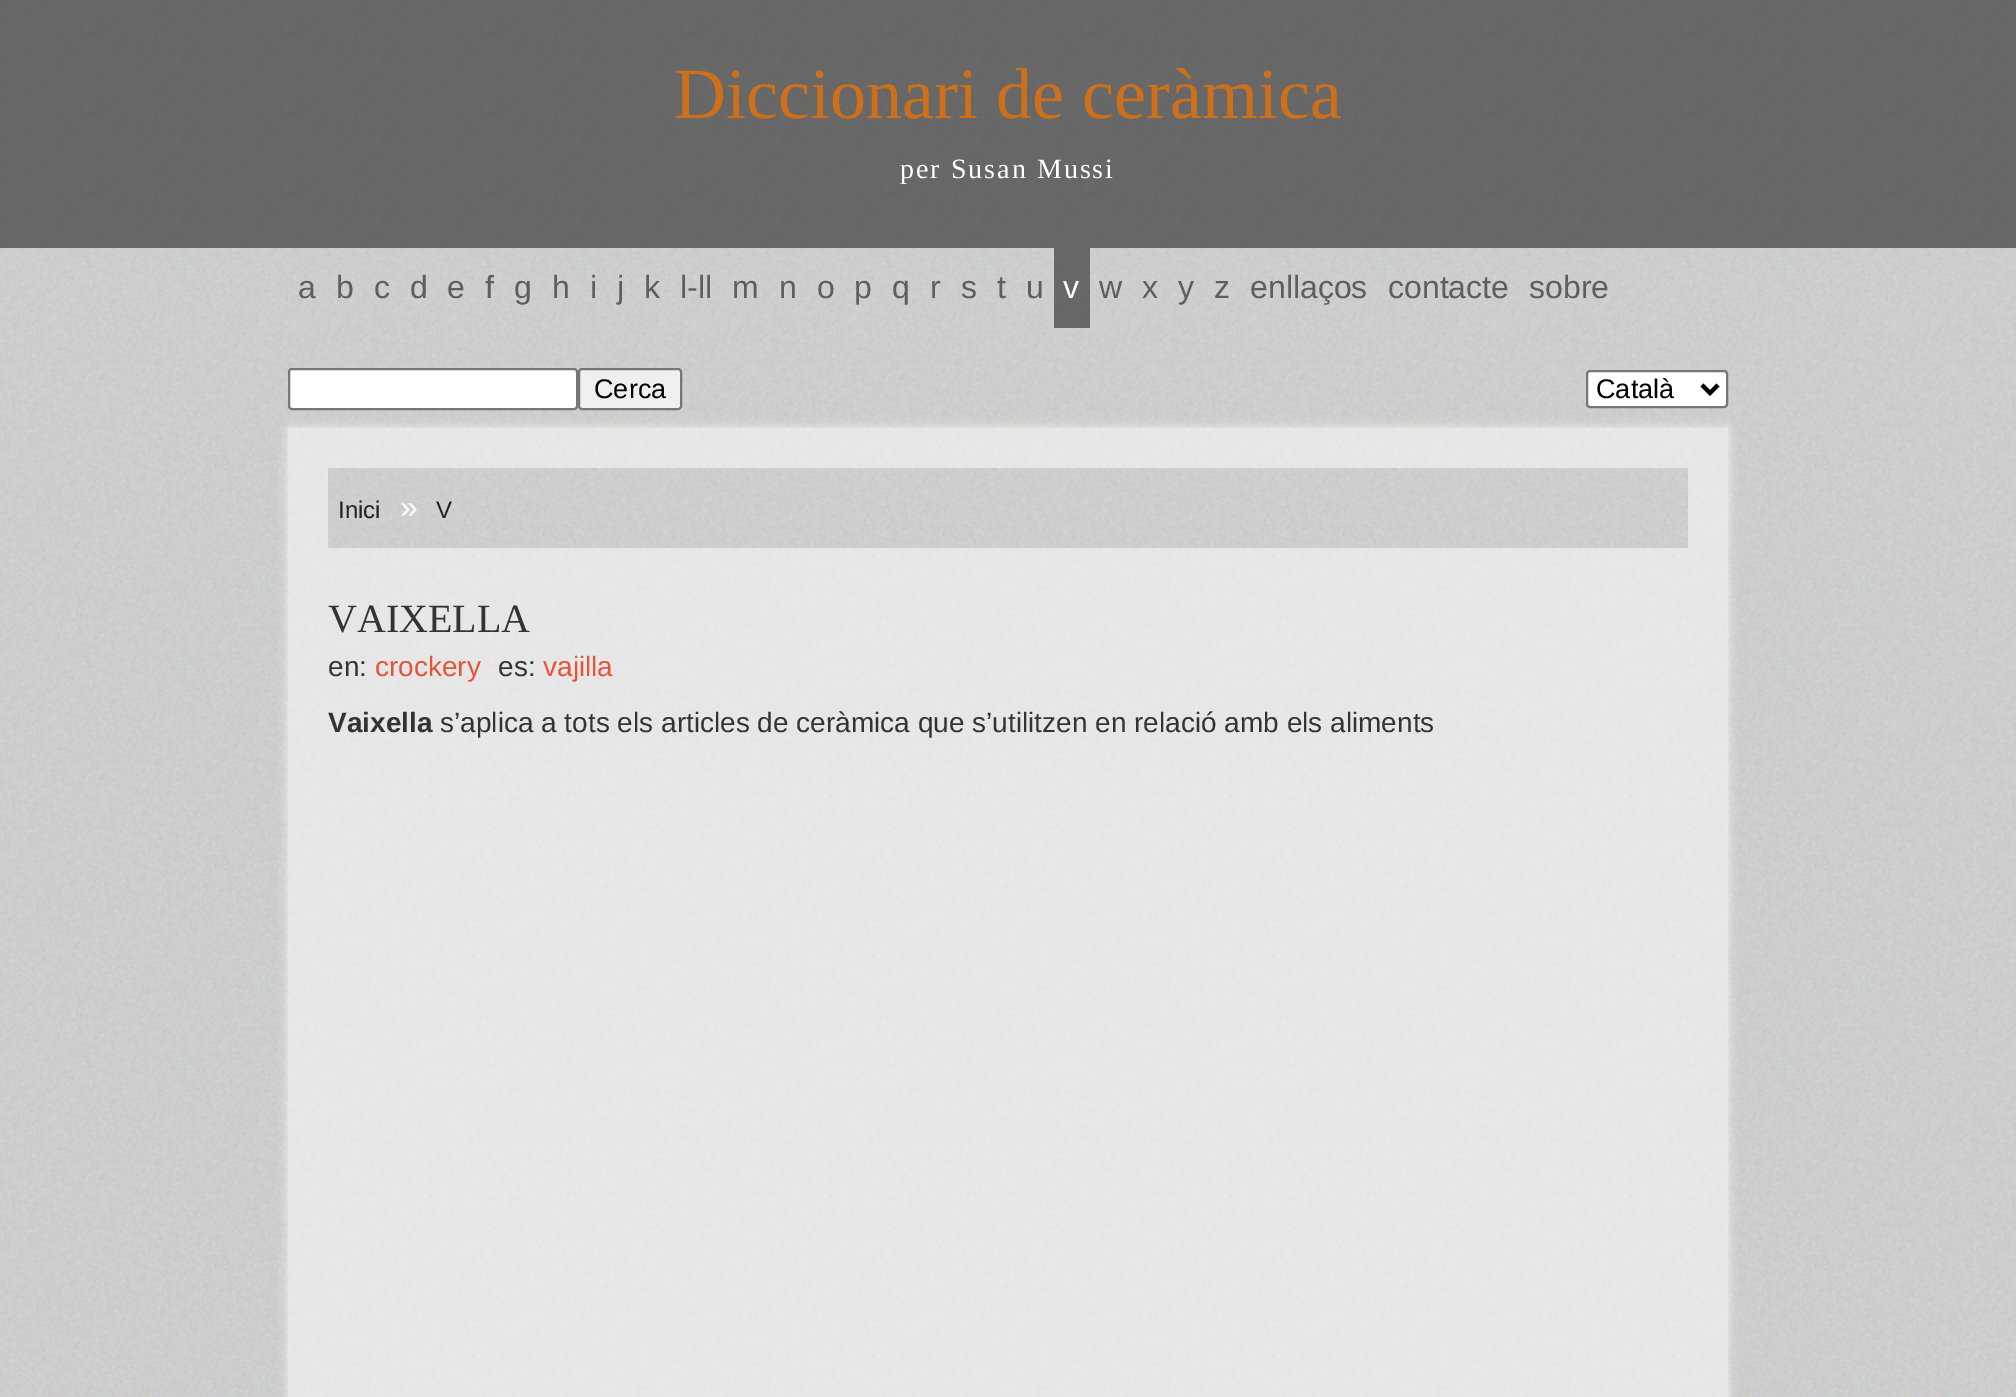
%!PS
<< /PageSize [2016 1397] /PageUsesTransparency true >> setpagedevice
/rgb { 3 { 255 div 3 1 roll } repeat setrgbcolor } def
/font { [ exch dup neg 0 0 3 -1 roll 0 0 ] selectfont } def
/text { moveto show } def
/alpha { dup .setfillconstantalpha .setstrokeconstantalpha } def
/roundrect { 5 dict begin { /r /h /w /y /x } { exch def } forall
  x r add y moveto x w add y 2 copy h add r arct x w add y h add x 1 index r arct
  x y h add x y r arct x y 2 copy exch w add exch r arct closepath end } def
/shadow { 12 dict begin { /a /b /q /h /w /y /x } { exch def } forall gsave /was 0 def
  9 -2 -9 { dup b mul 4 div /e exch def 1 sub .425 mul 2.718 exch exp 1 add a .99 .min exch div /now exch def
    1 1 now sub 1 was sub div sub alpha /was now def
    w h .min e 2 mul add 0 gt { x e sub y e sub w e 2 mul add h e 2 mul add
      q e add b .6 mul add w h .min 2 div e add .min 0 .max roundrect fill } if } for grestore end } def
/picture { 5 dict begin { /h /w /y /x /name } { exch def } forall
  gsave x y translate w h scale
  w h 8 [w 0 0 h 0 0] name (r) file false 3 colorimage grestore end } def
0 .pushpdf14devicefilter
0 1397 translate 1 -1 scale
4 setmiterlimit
255 255 255 rgb
0 0 2016 1397 rectfill
(img_01.rgb) 0 248 2016 1149 picture
(img_02.rgb) 0 0 2016 248 picture
(img_03.rgb) 1054 248 36 80 picture
289 369 288 40 3 roundrect gsave fill grestore
118 118 118 rgb
2 setlinewidth
stroke
239 239 239 rgb
579 369 102 40 3 roundrect gsave fill grestore
118 118 118 rgb
stroke
255 255 255 rgb
1587 371 140 36 3 roundrect gsave fill grestore
118 118 118 rgb
stroke
0 0 0 rgb
4 setlinewidth
1702 385 moveto 8 8 rlineto 8 -8 rlineto stroke
gsave
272 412 moveto 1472 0 rlineto 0 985 rlineto -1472 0 rlineto closepath 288 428 moveto 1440 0 rlineto 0 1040 rlineto -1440 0 rlineto closepath eoclip newpath
255 255 255 rgb
288 428 1440 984 0 5 0.7 shadow
grestore
0.5 alpha
255 255 255 rgb
288 428 1440 969 rectfill
1 alpha
(img_04.rgb) 328 468 1360 80 picture
/LiberationSerif-Regular 72 font
206 112 25 rgb
(Diccionari de ceràmica) 674 118 text
/LiberationSerif-Regular 28 font
255 255 255 rgb
900 178 moveto 2 0 (per Susan Mussi) ashow
/LiberationSans-Regular 32 font
94 94 94 rgb
(a) 298 298 text
(b) 336 298 text
(c) 374 298 text
(d) 410 298 text
(e) 447 298 text
(f) 485 298 text
(g) 514 298 text
(h) 552 298 text
(i) 590 298 text
(j) 617 298 text
(k) 644 298 text
(l-ll) 680 298 text
(m) 732 298 text
(n) 779 298 text
(o) 817 298 text
(p) 854 298 text
(q) 892 298 text
(r) 930 298 text
(s) 961 298 text
(t) 997 298 text
(u) 1026 298 text
255 255 255 rgb
(v) 1063 298 text
94 94 94 rgb
(w) 1099 298 text
(x) 1142 298 text
(y) 1178 298 text
(z) 1214 298 text
(enllaços) 1250 298 text
(contacte) 1388 298 text
(sobre) 1529 298 text
/LiberationSans-Regular 27 font
0 0 0 rgb
(Cerca) 594 398 text
(Català) 1596 398 text
/LiberationSans-Regular 24 font
33 33 33 rgb
(Inici) 338 518 text
/LiberationSans-Regular 32 font
255 255 255 rgb
(») 400 518 text
/LiberationSans-Regular 24 font
33 33 33 rgb
(V) 436 518 text
/LiberationSerif-Regular 40 font
51 51 51 rgb
(VAIXELLA) 328 632 text
/LiberationSans-Regular 28 font
(en:) 328 676 text
229 83 57 rgb
(crockery) 375 676 text
51 51 51 rgb
(es:) 498 676 text
229 83 57 rgb
(vajilla) 543 676 text
/LiberationSans-Bold 28 font
51 51 51 rgb
(Vaixella) 328 732 text
/LiberationSans-Regular 28 font
(s’aplica a tots els articles de ceràmica que s’utilitzen en relació amb els aliments) 440 732 text
.poppdf14devicefilter showpage
